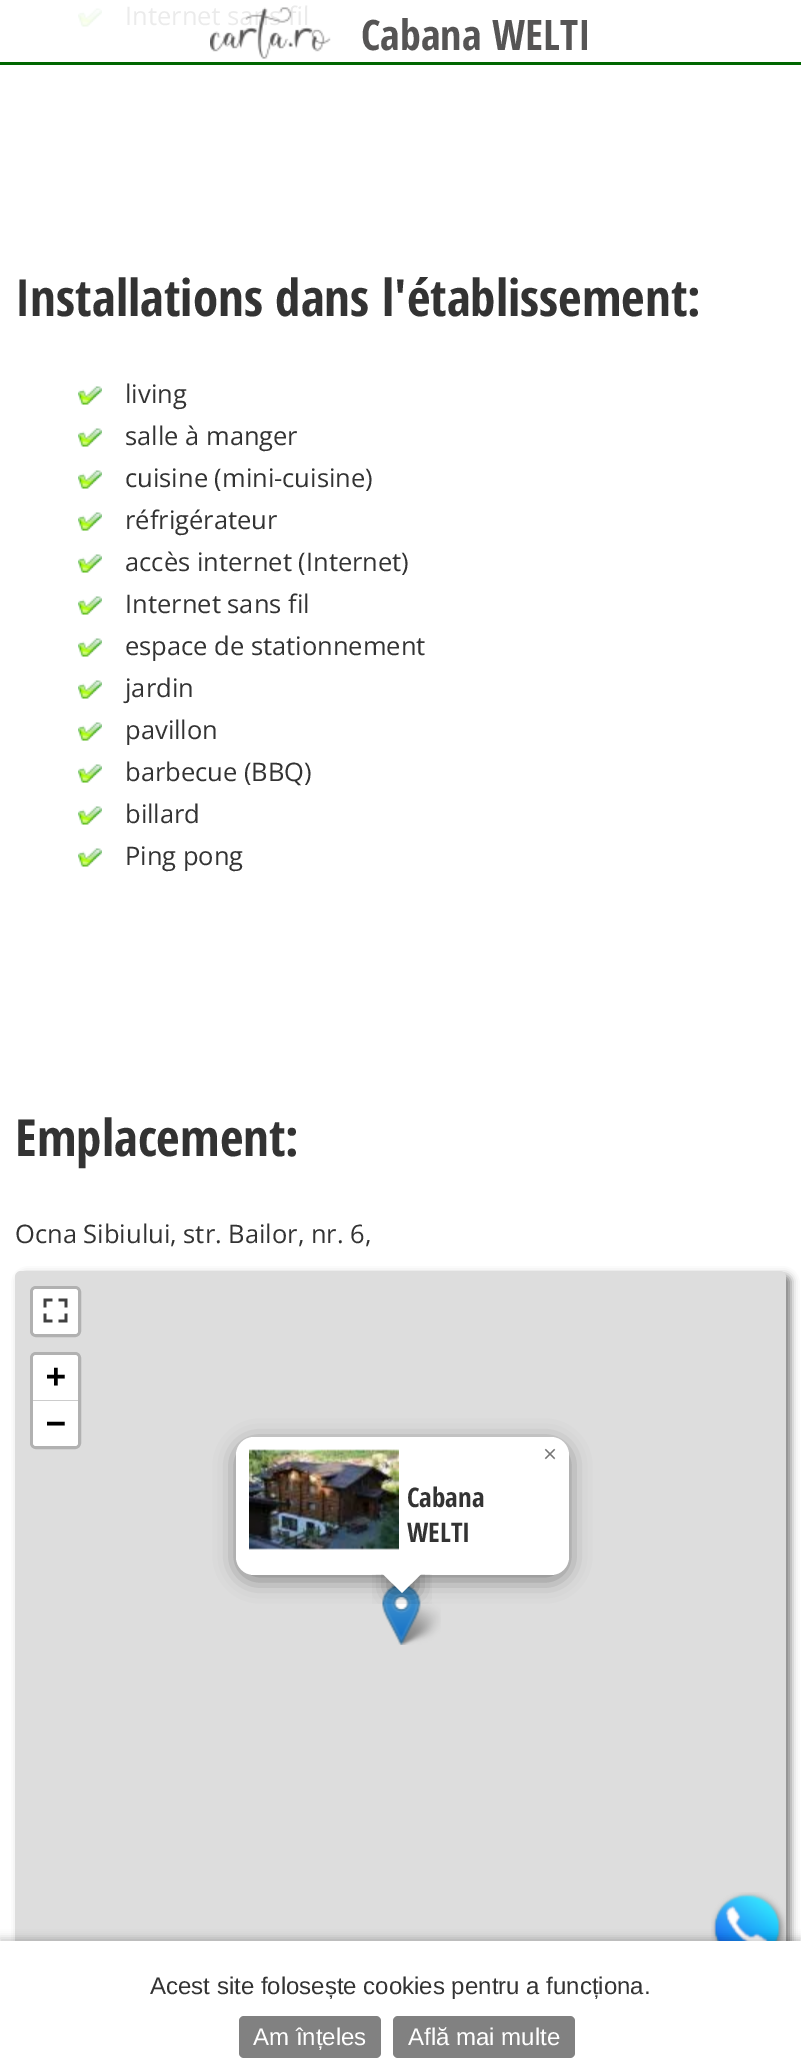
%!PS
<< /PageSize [801 2072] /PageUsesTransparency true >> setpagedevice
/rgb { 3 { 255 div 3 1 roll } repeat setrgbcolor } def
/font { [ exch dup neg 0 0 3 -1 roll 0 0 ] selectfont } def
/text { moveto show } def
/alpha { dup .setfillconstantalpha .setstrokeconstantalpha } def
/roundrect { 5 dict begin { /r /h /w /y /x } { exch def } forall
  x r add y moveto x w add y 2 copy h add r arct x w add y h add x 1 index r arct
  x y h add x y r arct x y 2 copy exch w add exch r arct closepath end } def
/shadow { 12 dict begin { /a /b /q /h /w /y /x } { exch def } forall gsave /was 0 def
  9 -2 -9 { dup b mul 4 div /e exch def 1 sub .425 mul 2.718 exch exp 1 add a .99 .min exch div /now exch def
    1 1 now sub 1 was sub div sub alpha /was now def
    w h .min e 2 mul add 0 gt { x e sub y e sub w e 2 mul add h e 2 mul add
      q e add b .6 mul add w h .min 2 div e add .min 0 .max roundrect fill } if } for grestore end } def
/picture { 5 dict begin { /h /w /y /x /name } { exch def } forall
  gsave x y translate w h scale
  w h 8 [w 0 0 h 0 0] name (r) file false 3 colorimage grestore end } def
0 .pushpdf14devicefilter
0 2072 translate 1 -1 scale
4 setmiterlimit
255 255 255 rgb
0 0 801 2072 rectfill
(img_01.rgb) 78 8 24 19 picture
(img_02.rgb) 78 386 24 19 picture
(img_02.rgb) 78 428 24 19 picture
(img_02.rgb) 78 470 24 19 picture
(img_02.rgb) 78 512 24 19 picture
(img_02.rgb) 78 554 24 19 picture
(img_02.rgb) 78 596 24 19 picture
(img_02.rgb) 78 638 24 19 picture
(img_02.rgb) 78 680 24 19 picture
(img_02.rgb) 78 722 24 19 picture
(img_02.rgb) 78 764 24 19 picture
(img_02.rgb) 78 806 24 19 picture
(img_02.rgb) 78 848 24 19 picture
129 129 129 rgb
20 1275 771 750 6 4 1 shadow
221 221 221 rgb
15 1271 771 750 6 roundrect fill
177 177 177 rgb
3 setlinewidth
31.5 1287.5 48 48 4.5 roundrect stroke
255 255 255 rgb
33 1289 45 45 3 roundrect fill
(img_03.rgb) 43 1298 25 25 picture
177 177 177 rgb
31.5 1353.5 48 94 4.5 roundrect stroke
255 255 255 rgb
36 1355 moveto 39 0 rlineto 1.5 0 3 1.5 3 3 rcurveto 0 43 rlineto -45 0 rlineto 0 -43 rlineto 0 -1.5 1.5 -3 3 -3 rcurveto closepath fill
204 204 204 rgb
33 1400 45 1 rectfill
255 255 255 rgb
33 1401 moveto 45 0 rlineto 0 42 rlineto 0 1.5 -1.5 3 -3 3 rcurveto -39 0 rlineto -1.5 0 -3 -1.5 -3 -3 rcurveto closepath fill
(img_06.rgb) 396 1602 45 43 picture
(img_05.rgb) 382 1585 39 60 picture
0 0 0 rgb
236 1442 333 138 18 10.5 0.4 shadow
255 255 255 rgb
236 1437 333 138 18 roundrect fill
(img_04.rgb) 249 1449 150 101 picture
gsave
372 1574 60 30 rectclip
0 0 0 rgb
389 1563 28 29 0 10.5 0.4 shadow
grestore
gsave
372 1574 60 30 rectclip
402 1552 moveto 20 21 rlineto -20 20 rlineto -20 -20 rlineto closepath fill
grestore
(img_07.rgb) 711 1892 75 49 picture
0 102 0 rgb
0 62 801 3 rectfill
0 0 0 rgb
0 1938 801 132 0 4 0.2 shadow
255 255 255 rgb
0 1941 801 131 rectfill
129 129 129 rgb
239 2016 142 42 5 roundrect fill
393 2016 182 42 5 roundrect fill
/OpenSans-Regular 25.5 font
235 235 235 rgb
(Internet sans fil) 125 25 text
/OpenSansCondensed-Bold 51 font
51 51 51 rgb
(Installations dans l'établissement:) 15 316 text
/OpenSans-Regular 25.5 font
(living) 125 403 text
(salle à manger) 125 445 text
(cuisine \(mini-cuisine\)) 125 487 text
(réfrigérateur) 125 529 text
(accès internet \(Internet\)) 125 571 text
(Internet sans fil) 125 613 text
(espace de stationnement) 125 655 text
(jardin) 125 697 text
(pavillon) 125 739 text
(barbecue \(BBQ\)) 125 781 text
(billard) 125 823 text
(Ping pong) 125 865 text
/OpenSansCondensed-Bold 51 font
(Emplacement:) 15 1156 text
/OpenSans-Regular 25.5 font
(Ocna Sibiului, str. Bailor, nr. 6,) 15 1243 text
/DejaVuSansMono-Bold 33 font
0 0 0 rgb
(+) 46 1387 text
(−) 46 1434 text
/LiberationSans-Regular 24 font
117 117 117 rgb
(×) 543 1462 text
/OpenSansCondensed-Bold 27 font
51 51 51 rgb
(Cabana) 407 1507 text
(WELTI) 407 1542 text
(img_08.rgb) 210 7 121 52 picture
/OpenSansCondensed-Bold 42 font
86 85 85 rgb
(Cabana WELTI) 361 50 text
/LiberationSans-Regular 24 font
51 51 51 rgb
(Acest site folosește cookies pentru a funcționa.) 150 1994 text
255 255 255 rgb
(Am înțeles) 253 2045 text
(Află mai multe) 408 2045 text
.poppdf14devicefilter showpage
